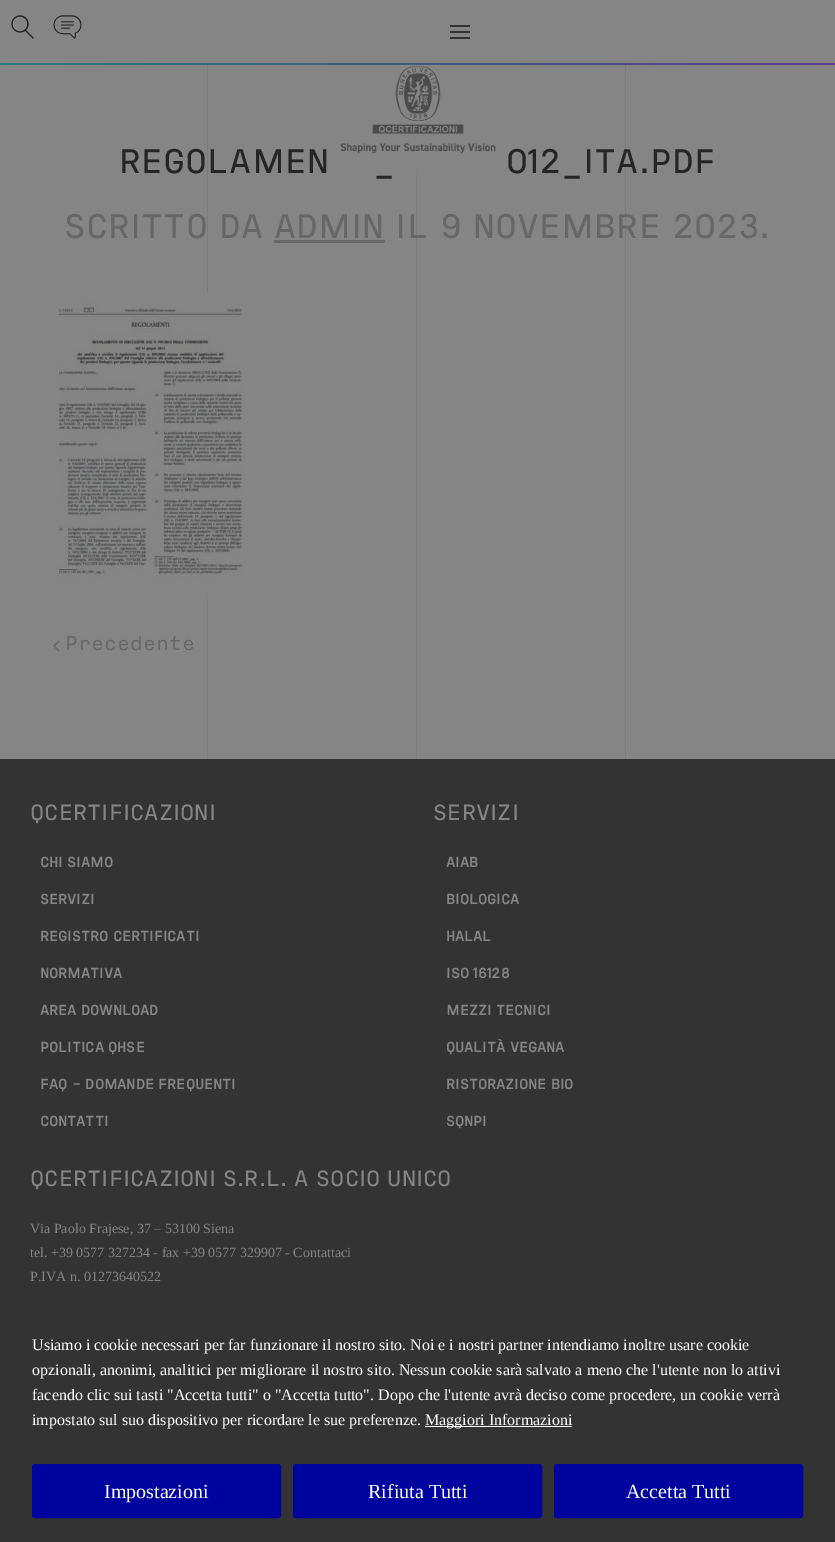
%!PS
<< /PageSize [835 1542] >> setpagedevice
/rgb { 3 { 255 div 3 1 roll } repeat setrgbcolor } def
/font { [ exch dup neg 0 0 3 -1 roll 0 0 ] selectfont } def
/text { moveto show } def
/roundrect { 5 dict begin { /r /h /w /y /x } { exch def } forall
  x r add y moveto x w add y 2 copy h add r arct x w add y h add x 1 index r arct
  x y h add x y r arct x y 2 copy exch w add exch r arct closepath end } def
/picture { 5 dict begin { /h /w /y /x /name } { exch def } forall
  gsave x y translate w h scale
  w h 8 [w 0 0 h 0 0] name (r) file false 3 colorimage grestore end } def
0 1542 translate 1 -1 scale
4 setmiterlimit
133 133 133 rgb
0 0 835 1542 rectfill
gsave 0 63 moveto 835 0 rlineto 0 2 rlineto -835 0 rlineto closepath clip newpath
<< /ShadingType 2 /ColorSpace /DeviceRGB /Coords [0 33 835 32] /Extend [true true] /Function << /FunctionType 2 /Domain [0 1] /C0 [0.173 0.482 0.459] /C1 [0.349 0.231 0.518] /N 1 >> >> shfill grestore
(img_01.rgb) 11 15 23 24 picture
(img_02.rgb) 53 15 29 24 picture
51 51 51 rgb
450 25 20 2 rectfill
450 31 20 2 rectfill
450 37 20 2 rectfill
(img_03.rgb) 340 65 156 89 picture
124 124 124 rgb
207 65 1 694 rectfill
416 169 1 590 rectfill
625 65 1 694 rectfill
103 103 103 rgb
274 240 111 3 rectfill
(img_04.rgb) 59 293 184 300 picture
1.2 setlinewidth
59 641 moveto -5 5 rlineto 5 5 rlineto stroke
51 51 51 rgb
0 759 835 783 rectfill
255 255 255 rgb
425 1426 147 1 rectfill
0 4 158 rgb
32.5 1464.5 248 53 2.5 roundrect gsave fill grestore
1 setlinewidth
stroke
293.5 1464.5 248 53 2.5 roundrect gsave fill grestore
stroke
554.5 1464.5 248 53 2.5 roundrect gsave fill grestore
stroke
/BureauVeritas-Regular 34 font
37 37 37 rgb
(REGOLAMEN) 119 173 text
(_) 373 173 text
(012_ITA.PDF) 506 173 text
103 103 103 rgb
(SCRITTO DA ADMIN IL 9 NOVEMBRE 2023.) 64 238 text
/BureauVeritas-Regular 20 font
(Precedente) 65 650 text
/BureauVeritas-Regular 22 font
133 133 133 rgb
(QCERTIFICAZIONI) 30 820 text
/BureauVeritas-Bold 14 font
(CHI SIAMO) 40 867 text
(SERVIZI) 40 904 text
(REGISTRO CERTIFICATI) 40 941 text
(NORMATIVA) 40 978 text
(AREA DOWNLOAD) 40 1015 text
(POLITICA QHSE) 40 1052 text
(FAQ – DOMANDE FREQUENTI) 40 1089 text
(CONTATTI) 40 1126 text
/BureauVeritas-Regular 22 font
(SERVIZI) 433 820 text
/BureauVeritas-Bold 14 font
(AIAB) 446 867 text
(BIOLOGICA) 446 904 text
(HALAL) 446 941 text
(ISO 16128) 446 978 text
(MEZZI TECNICI) 446 1015 text
(QUALITÀ VEGANA) 446 1052 text
(RISTORAZIONE BIO) 446 1089 text
(SQNPI) 446 1126 text
/BureauVeritas-Regular 22 font
(QCERTIFICAZIONI S.R.L. A SOCIO UNICO) 30 1186 text
/LiberationSerif-Regular 14 font
(Via Paolo Frajese, 37 – 53100 Siena) 30 1233 text
(tel. +39 0577 327234 - fax +39 0577 329907 - Contattaci) 30 1257 text
(P.IVA n. 01273640522) 30 1281 text
/LiberationSerif-Regular 16 font
255 255 255 rgb
(Usiamo i cookie necessari per far funzionare il nostro sito. Noi e i nostri partner intendiamo inoltre usare cookie) 32 1350 text
(opzionali, anonimi, analitici per migliorare il nostro sito. Nessun cookie sarà salvato a meno che l'utente non lo attivi) 32 1375 text
(facendo clic sui tasti "Accetta tutti" o "Accetta tutto". Dopo che l'utente avrà deciso come procedere, un cookie verrà) 32 1400 text
(impostato sul suo dispositivo per ricordare le sue preferenze.) 32 1425 text
(Maggiori Informazioni) 425 1425 text
/LiberationSerif-Regular 20 font
(Impostazioni) 104 1498 text
(Rifiuta Tutti) 368 1498 text
(Accetta Tutti) 626 1498 text
showpage
